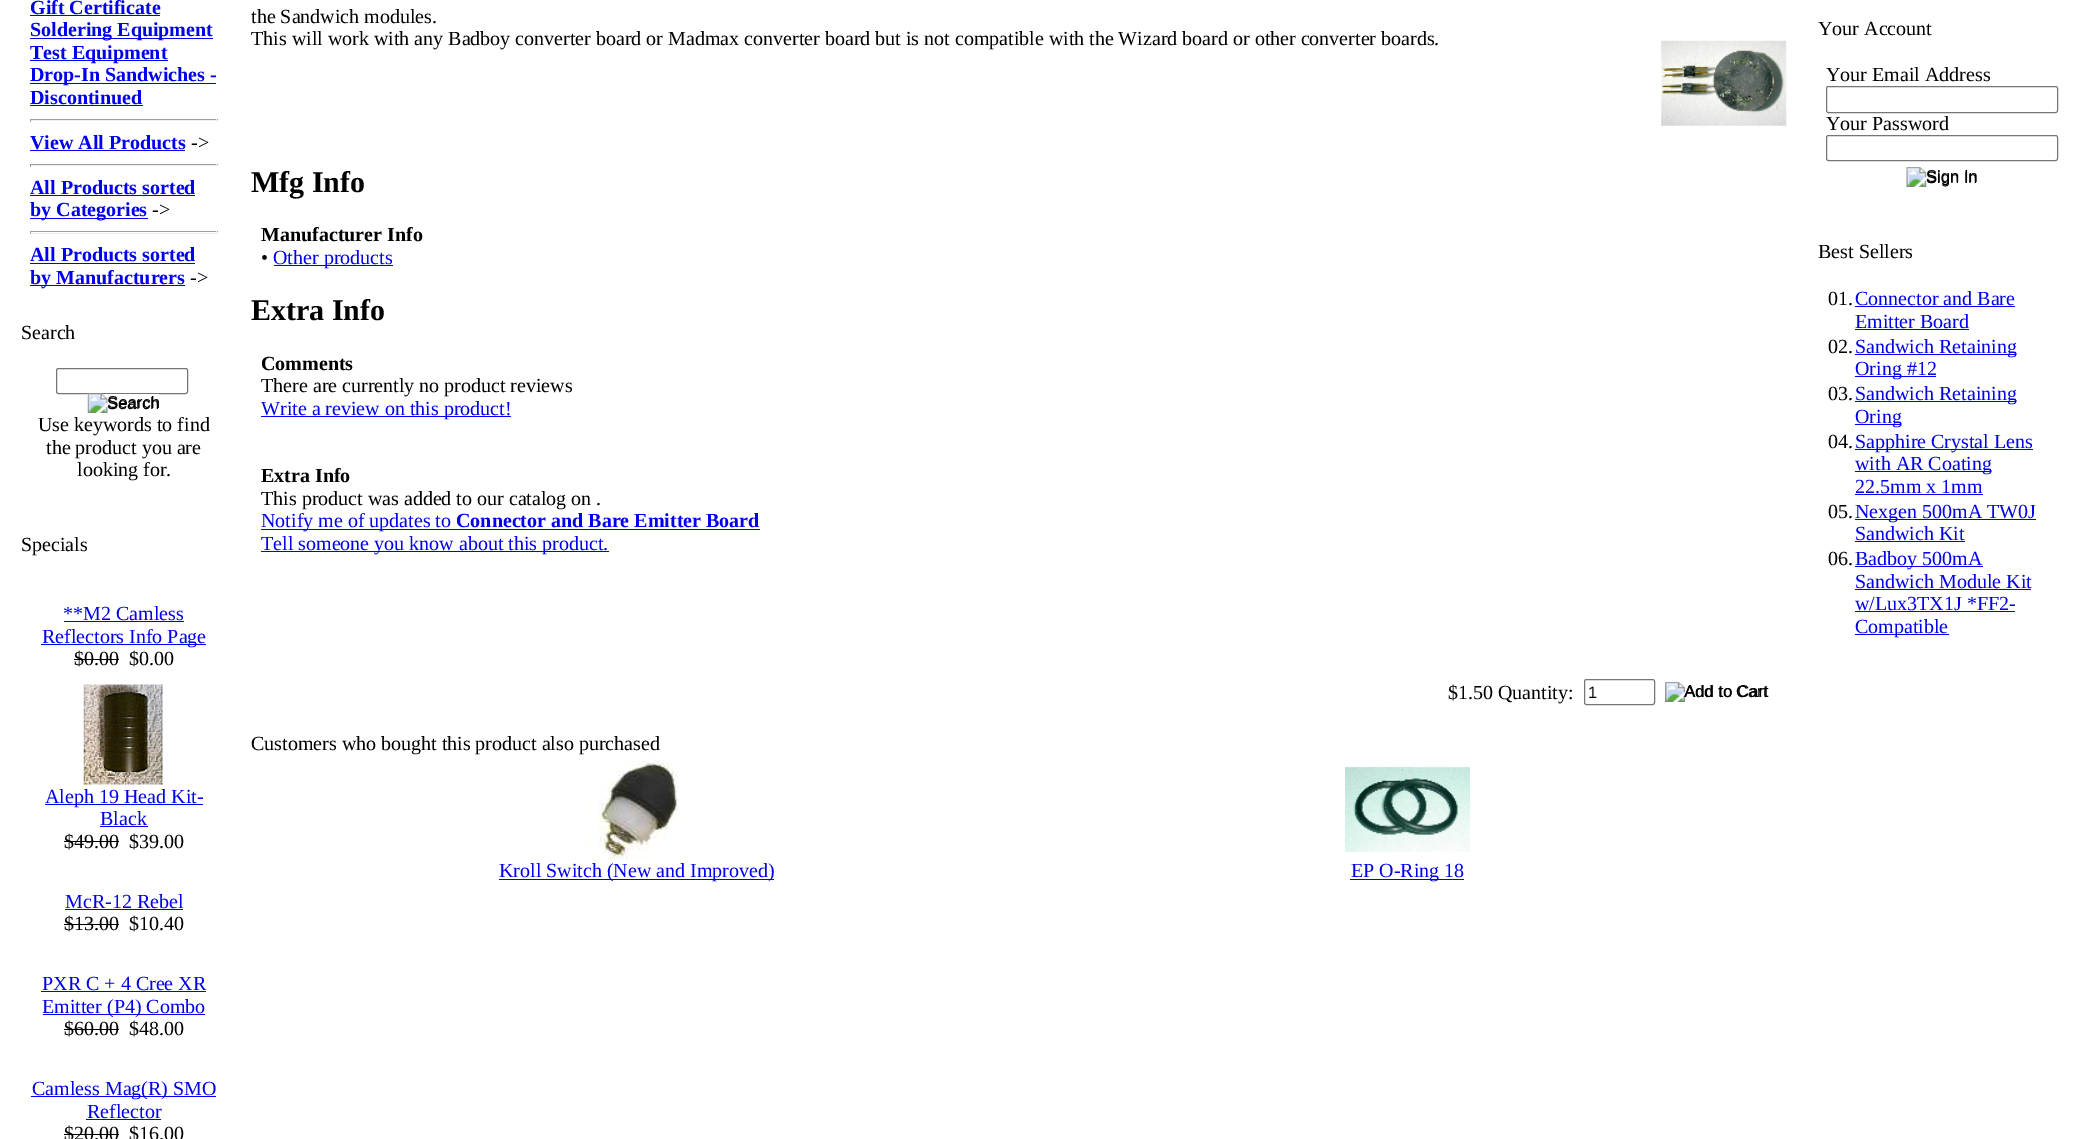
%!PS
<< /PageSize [2087 1139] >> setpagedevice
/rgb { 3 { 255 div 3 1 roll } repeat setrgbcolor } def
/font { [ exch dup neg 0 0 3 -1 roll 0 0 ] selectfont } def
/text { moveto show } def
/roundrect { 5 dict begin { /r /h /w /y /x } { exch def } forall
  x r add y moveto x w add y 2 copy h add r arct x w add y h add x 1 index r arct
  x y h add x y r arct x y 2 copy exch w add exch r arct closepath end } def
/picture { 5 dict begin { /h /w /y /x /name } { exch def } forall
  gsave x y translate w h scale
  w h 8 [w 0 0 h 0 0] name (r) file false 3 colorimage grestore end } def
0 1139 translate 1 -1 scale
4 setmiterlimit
255 255 255 rgb
0 0 2087 1139 rectfill
0 0 238 rgb
30 15 130 1 rectfill
30 38 183 1 rectfill
30 60 138 1 rectfill
30 83 186 1 rectfill
30 105 113 1 rectfill
159 159 159 rgb
30 119 188 1 rectfill
238 238 238 rgb
216 119 1 3 rectfill
30 120 188 1 rectfill
159 159 159 rgb
30 119 1 3 rectfill
0 0 238 rgb
30 150 155 1 rectfill
159 159 159 rgb
30 164 188 1 rectfill
238 238 238 rgb
216 164 1 3 rectfill
30 165 188 1 rectfill
159 159 159 rgb
30 164 1 3 rectfill
0 0 238 rgb
30 195 165 1 rectfill
30 218 118 1 rectfill
159 159 159 rgb
30 231 188 1 rectfill
238 238 238 rgb
216 231 1 3 rectfill
30 233 188 1 rectfill
159 159 159 rgb
30 231 1 3 rectfill
0 0 238 rgb
30 263 165 1 rectfill
30 285 155 1 rectfill
118 118 118 rgb
56.5 368.5 131 25 2 roundrect stroke
(img_01.rgb) 87 393 72 21 picture
0 0 238 rgb
64 621 120 1 rectfill
41 644 165 1 rectfill
0 0 0 rgb
74 659 45 1 rectfill
(img_02.rgb) 83 684 80 101 picture
0 0 238 rgb
45 804 158 1 rectfill
100 826 48 1 rectfill
0 0 0 rgb
64 841 55 1 rectfill
0 0 238 rgb
65 909 118 1 rectfill
0 0 0 rgb
64 924 55 1 rectfill
0 0 238 rgb
41 991 165 1 rectfill
43 1014 162 1 rectfill
0 0 0 rgb
64 1029 55 1 rectfill
0 0 238 rgb
31 1096 185 1 rectfill
86 1119 75 1 rectfill
0 0 0 rgb
64 1134 55 1 rectfill
(img_03.rgb) 1661 40 126 86 picture
0 0 238 rgb
274 265 119 1 rectfill
261 416 250 1 rectfill
261 529 499 1 rectfill
261 551 348 1 rectfill
118 118 118 rgb
1584.5 679.5 70 25 2 roundrect stroke
(img_04.rgb) 1665 682 104 20 picture
(img_05.rgb) 589 759 90 101 picture
0 0 238 rgb
499 879 275 1 rectfill
(img_06.rgb) 1345 766 125 86 picture
1350 879 114 1 rectfill
118 118 118 rgb
1826.5 86.5 231 26 2 roundrect stroke
1826.5 135.5 231 25 2 roundrect stroke
(img_07.rgb) 1906 167 71 20 picture
0 0 238 rgb
1855 306 160 1 rectfill
1855 329 114 1 rectfill
1855 354 161 1 rectfill
1855 376 81 1 rectfill
1855 401 161 1 rectfill
1855 424 46 1 rectfill
1855 449 178 1 rectfill
1855 471 136 1 rectfill
1855 494 128 1 rectfill
1855 519 181 1 rectfill
1855 541 110 1 rectfill
1855 566 128 1 rectfill
1855 589 176 1 rectfill
1855 611 160 1 rectfill
1855 634 94 1 rectfill
/LiberationSerif-Bold 20 font
(Gift Certificate) 30 14 text
(Soldering Equipment) 30 36 text
(Test Equipment) 30 59 text
(Drop-In Sandwiches -) 30 81 text
(Discontinued) 30 104 text
(View All Products) 30 149 text
/LiberationSerif-Regular 20 font
0 0 0 rgb
(->) 191 149 text
/LiberationSerif-Bold 20 font
0 0 238 rgb
(All Products sorted) 30 194 text
(by Categories) 30 216 text
/LiberationSerif-Regular 20 font
0 0 0 rgb
(->) 152 216 text
/LiberationSerif-Bold 20 font
0 0 238 rgb
(All Products sorted) 30 261 text
(by Manufacturers) 30 284 text
/LiberationSerif-Regular 20 font
0 0 0 rgb
(->) 190 284 text
(Search) 21 339 text
/LiberationSans-Regular 16.5 font
(Search) 107 409 text
/LiberationSerif-Regular 20 font
(Use keywords to find) 38 431 text
(the product you are) 46 454 text
(looking for.) 77 476 text
(Specials) 21 551 text
0 0 238 rgb
(**M2 Camless) 63 620 text
(Reflectors Info Page) 42 643 text
0 0 0 rgb
($0.00) 74 665 text
($0.00) 129 665 text
0 0 238 rgb
(Aleph 19 Head Kit-) 45 803 text
(Black) 100 825 text
0 0 0 rgb
($49.00) 64 848 text
($39.00) 129 848 text
0 0 238 rgb
(McR-12 Rebel) 65 908 text
0 0 0 rgb
($13.00) 64 930 text
($10.40) 129 930 text
0 0 238 rgb
(PXR C + 4 Cree XR) 42 990 text
(Emitter \(P4\) Combo) 42 1013 text
0 0 0 rgb
($60.00) 64 1035 text
($48.00) 129 1035 text
0 0 238 rgb
(Camless Mag\(R\) SMO) 32 1095 text
(Reflector) 87 1118 text
0 0 0 rgb
($20.00) 64 1140 text
($16.00) 129 1140 text
(the Sandwich modules.) 251 23 text
(This will work with any Badboy converter board or Madmax converter board but is not compatible with the Wizard board or other converter boards.) 251 45 text
/LiberationSerif-Bold 30 font
(Mfg Info) 251 192 text
/LiberationSerif-Bold 20 font
(Manufacturer Info) 261 241 text
/LiberationSerif-Regular 20 font
(•) 261 264 text
0 0 238 rgb
(Other products) 273 264 text
/LiberationSerif-Bold 30 font
0 0 0 rgb
(Extra Info) 251 320 text
/LiberationSerif-Bold 20 font
(Comments) 261 370 text
/LiberationSerif-Regular 20 font
(There are currently no product reviews) 261 392 text
0 0 238 rgb
(Write a review on this product!) 261 415 text
/LiberationSerif-Bold 20 font
0 0 0 rgb
(Extra Info) 261 482 text
/LiberationSerif-Regular 20 font
(This product was added to our catalog on .) 261 505 text
0 0 238 rgb
(Notify me of updates to) 261 527 text
/LiberationSerif-Bold 20 font
(Connector and Bare Emitter Board) 456 527 text
/LiberationSerif-Regular 20 font
(Tell someone you know about this product.) 261 550 text
0 0 0 rgb
($1.50 Quantity:) 1448 699 text
/LiberationSans-Regular 16.5 font
(1) 1588 698 text
(Add to Cart) 1684 697 text
/LiberationSerif-Regular 20 font
(Customers who bought this product also purchased) 251 750 text
0 0 238 rgb
(Kroll Switch \(New and Improved\)) 499 877 text
(EP O-Ring 18) 1351 877 text
0 0 0 rgb
(Your Account) 1818 35 text
(Your Email Address) 1826 81 text
(Your Password) 1826 130 text
/LiberationSans-Regular 16.5 font
(Sign In) 1926 183 text
/LiberationSerif-Regular 20 font
(Best Sellers) 1818 258 text
(01.) 1828 305 text
0 0 238 rgb
(Connector and Bare) 1855 305 text
(Emitter Board) 1855 328 text
0 0 0 rgb
(02.) 1828 353 text
0 0 238 rgb
(Sandwich Retaining) 1855 353 text
(Oring #12) 1855 375 text
0 0 0 rgb
(03.) 1828 400 text
0 0 238 rgb
(Sandwich Retaining) 1855 400 text
(Oring) 1855 423 text
0 0 0 rgb
(04.) 1828 448 text
0 0 238 rgb
(Sapphire Crystal Lens) 1855 448 text
(with AR Coating) 1855 470 text
(22.5mm x 1mm) 1855 493 text
0 0 0 rgb
(05.) 1828 518 text
0 0 238 rgb
(Nexgen 500mA TW0J) 1855 518 text
(Sandwich Kit) 1855 540 text
0 0 0 rgb
(06.) 1828 565 text
0 0 238 rgb
(Badboy 500mA) 1855 565 text
(Sandwich Module Kit) 1855 588 text
(w/Lux3TX1J *FF2-) 1855 610 text
(Compatible) 1855 633 text
showpage
